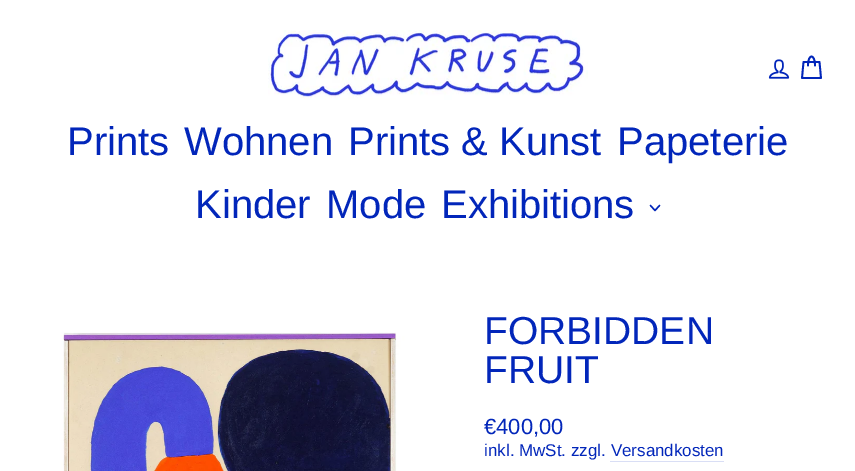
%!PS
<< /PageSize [855 471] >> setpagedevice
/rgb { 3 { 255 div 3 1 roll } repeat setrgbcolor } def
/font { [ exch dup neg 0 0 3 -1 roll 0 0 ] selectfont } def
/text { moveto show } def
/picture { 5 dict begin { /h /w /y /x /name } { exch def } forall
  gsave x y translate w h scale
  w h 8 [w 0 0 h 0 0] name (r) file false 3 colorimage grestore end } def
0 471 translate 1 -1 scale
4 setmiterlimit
255 255 255 rgb
0 0 855 471 rectfill
(img_01.rgb) 268 30 320 70 picture
(img_02.rgb) 768 59 22 20 picture
2 38 186 rgb
1.8 setlinewidth
1 setlinecap
1 setlinejoin
808 65.5 moveto 0 -12 7 -12 7 0 rcurveto 803.5 62 moveto 16 0 rlineto 1.5 16 rlineto -19 0 rlineto closepath stroke
1.4 setlinewidth
650.5 205.5 moveto 4.5 5 rlineto 4.5 -5 rlineto stroke
(img_03.rgb) 40 311 377 160 picture
217 222 245 rgb
610 461 114 1 rectfill
/Arimo-Regular 40 font
2 38 186 rgb
(Prints) 67 155 text
(Wohnen) 184 155 text
(Prints & Kunst) 348 155 text
(Papeterie) 617 155 text
(Kinder) 195 218 text
(Mode) 326 218 text
(Exhibitions) 441 218 text
/Arimo-Regular 39 font
(FORBIDDEN) 484 344 text
(FRUIT) 484 383 text
/Arimo-Regular 22 font
(€400,00) 484 434 text
/Arimo-Regular 17 font
(inkl. MwSt. zzgl. Versandkosten) 484 456 text
showpage
